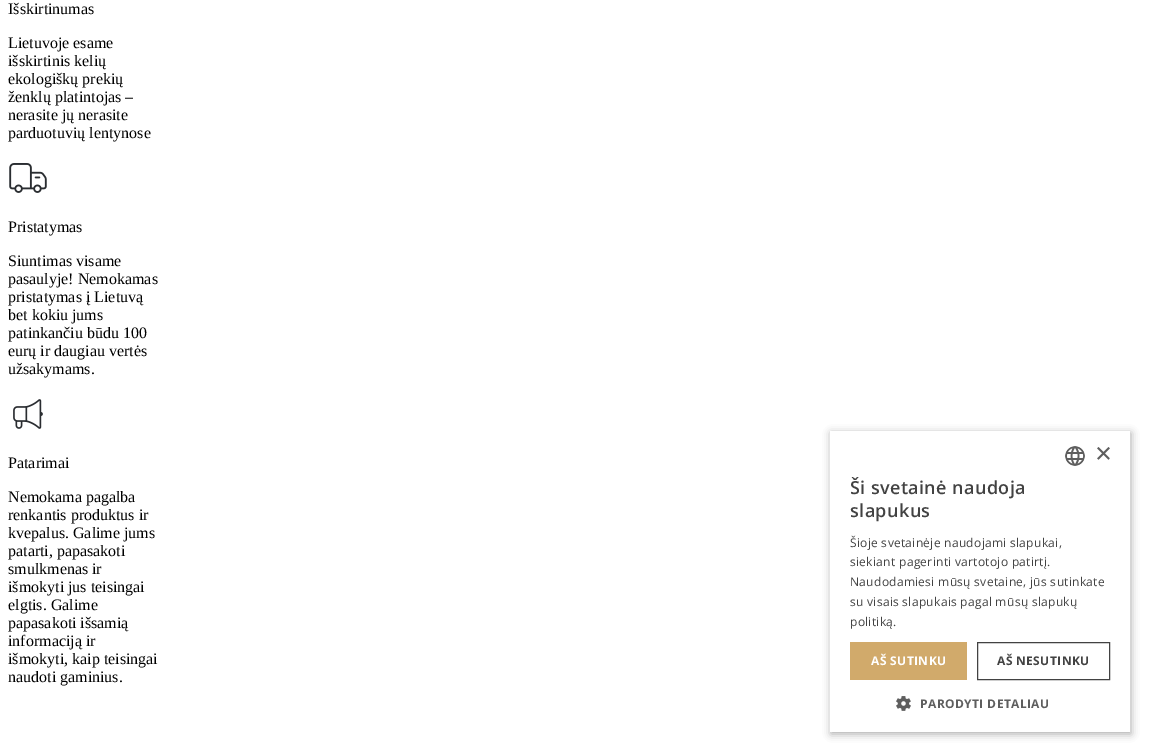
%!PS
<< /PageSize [1150 752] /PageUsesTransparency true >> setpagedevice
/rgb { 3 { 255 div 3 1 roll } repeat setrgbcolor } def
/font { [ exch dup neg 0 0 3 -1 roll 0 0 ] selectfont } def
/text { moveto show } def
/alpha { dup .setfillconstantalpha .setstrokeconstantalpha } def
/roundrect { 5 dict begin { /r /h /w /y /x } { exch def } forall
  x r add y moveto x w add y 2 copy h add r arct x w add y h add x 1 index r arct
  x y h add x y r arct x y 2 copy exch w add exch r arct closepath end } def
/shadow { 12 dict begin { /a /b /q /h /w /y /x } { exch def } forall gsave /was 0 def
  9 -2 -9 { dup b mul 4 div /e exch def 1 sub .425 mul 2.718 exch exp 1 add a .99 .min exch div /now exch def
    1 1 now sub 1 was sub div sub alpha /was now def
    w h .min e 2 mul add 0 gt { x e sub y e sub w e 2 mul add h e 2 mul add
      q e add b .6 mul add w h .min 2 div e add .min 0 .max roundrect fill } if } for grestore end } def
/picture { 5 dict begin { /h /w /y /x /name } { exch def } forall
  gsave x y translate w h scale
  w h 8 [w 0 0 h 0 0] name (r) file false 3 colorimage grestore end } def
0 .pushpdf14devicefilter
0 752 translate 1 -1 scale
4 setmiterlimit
255 255 255 rgb
0 0 1150 752 rectfill
(img_01.rgb) 9 163 38 30 picture
(img_02.rgb) 13 399 30 30 picture
gsave
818 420 moveto 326 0 rlineto 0 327 rlineto -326 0 rlineto closepath 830 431 moveto 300 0 rlineto 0 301 rlineto -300 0 rlineto closepath eoclip newpath
26 26 26 rgb
831 433 300 301 0 4 0.35 shadow
grestore
(img_03.rgb) 1065 446 20 20 picture
209 170 107 rgb
850 642 117 38 rectfill
66 66 66 rgb
977.5 642.5 132 37 rectstroke
(img_04.rgb) 896 696 15 15 picture
/LiberationSerif-Regular 16 font
0 0 0 rgb
(Išskirtinumas) 8 14 text
(Lietuvoje esame) 8 48 text
(išskirtinis kelių) 8 66 text
(ekologiškų prekių) 8 84 text
(ženklų platintojas –) 8 102 text
(nerasite jų nerasite) 8 120 text
(parduotuvių lentynose) 8 138 text
(Pristatymas) 8 232 text
(Siuntimas visame) 8 266 text
(pasaulyje! Nemokamas) 8 284 text
(pristatymas į Lietuvą) 8 302 text
(bet kokiu jums) 8 320 text
(patinkančiu būdu 100) 8 338 text
(eurų ir daugiau vertės) 8 356 text
(užsakymams.) 8 374 text
(Patarimai) 8 468 text
(Nemokama pagalba) 8 502 text
(renkantis produktus ir) 8 520 text
(kvepalus. Galime jums) 8 538 text
(patarti, papasakoti) 8 556 text
(smulkmenas ir) 8 574 text
(išmokyti jus teisingai) 8 592 text
(elgtis. Galime) 8 610 text
(papasakoti išsamią) 8 628 text
(informaciją ir) 8 646 text
(išmokyti, kaip teisingai) 8 664 text
(naudoti gaminius.) 8 682 text
/LiberationSans-Regular 29 font
94 94 94 rgb
(×) 1095 463 text
/OpenSans-SemiBold 18 font
66 66 66 rgb
850 494 moveto 0.4 0 (Ši svetainė naudoja) ashow
850 517 moveto 0.4 0 (slapukus) ashow
/OpenSans-Regular 12 font
850 547 moveto 0.3 0 (Šioje svetainėje naudojami slapukai,) ashow
850 566 moveto 0.3 0 (siekiant pagerinti vartotojo patirtį.) ashow
850 586 moveto 0.3 0 (Naudodamiesi mūsų svetaine, jūs sutinkate) ashow
850 606 moveto 0.3 0 (su visais slapukais pagal mūsų slapukų) ashow
850 626 moveto 0.3 0 (politiką.) ashow
/OpenSans-Bold 12 font
255 255 255 rgb
871 665 moveto 0.4 0 (AŠ SUTINKU) ashow
66 66 66 rgb
997 665 moveto 0.4 0 (AŠ NESUTINKU) ashow
94 94 94 rgb
920 708 moveto 0.4 0 (PARODYTI DETALIAU) ashow
.poppdf14devicefilter showpage
